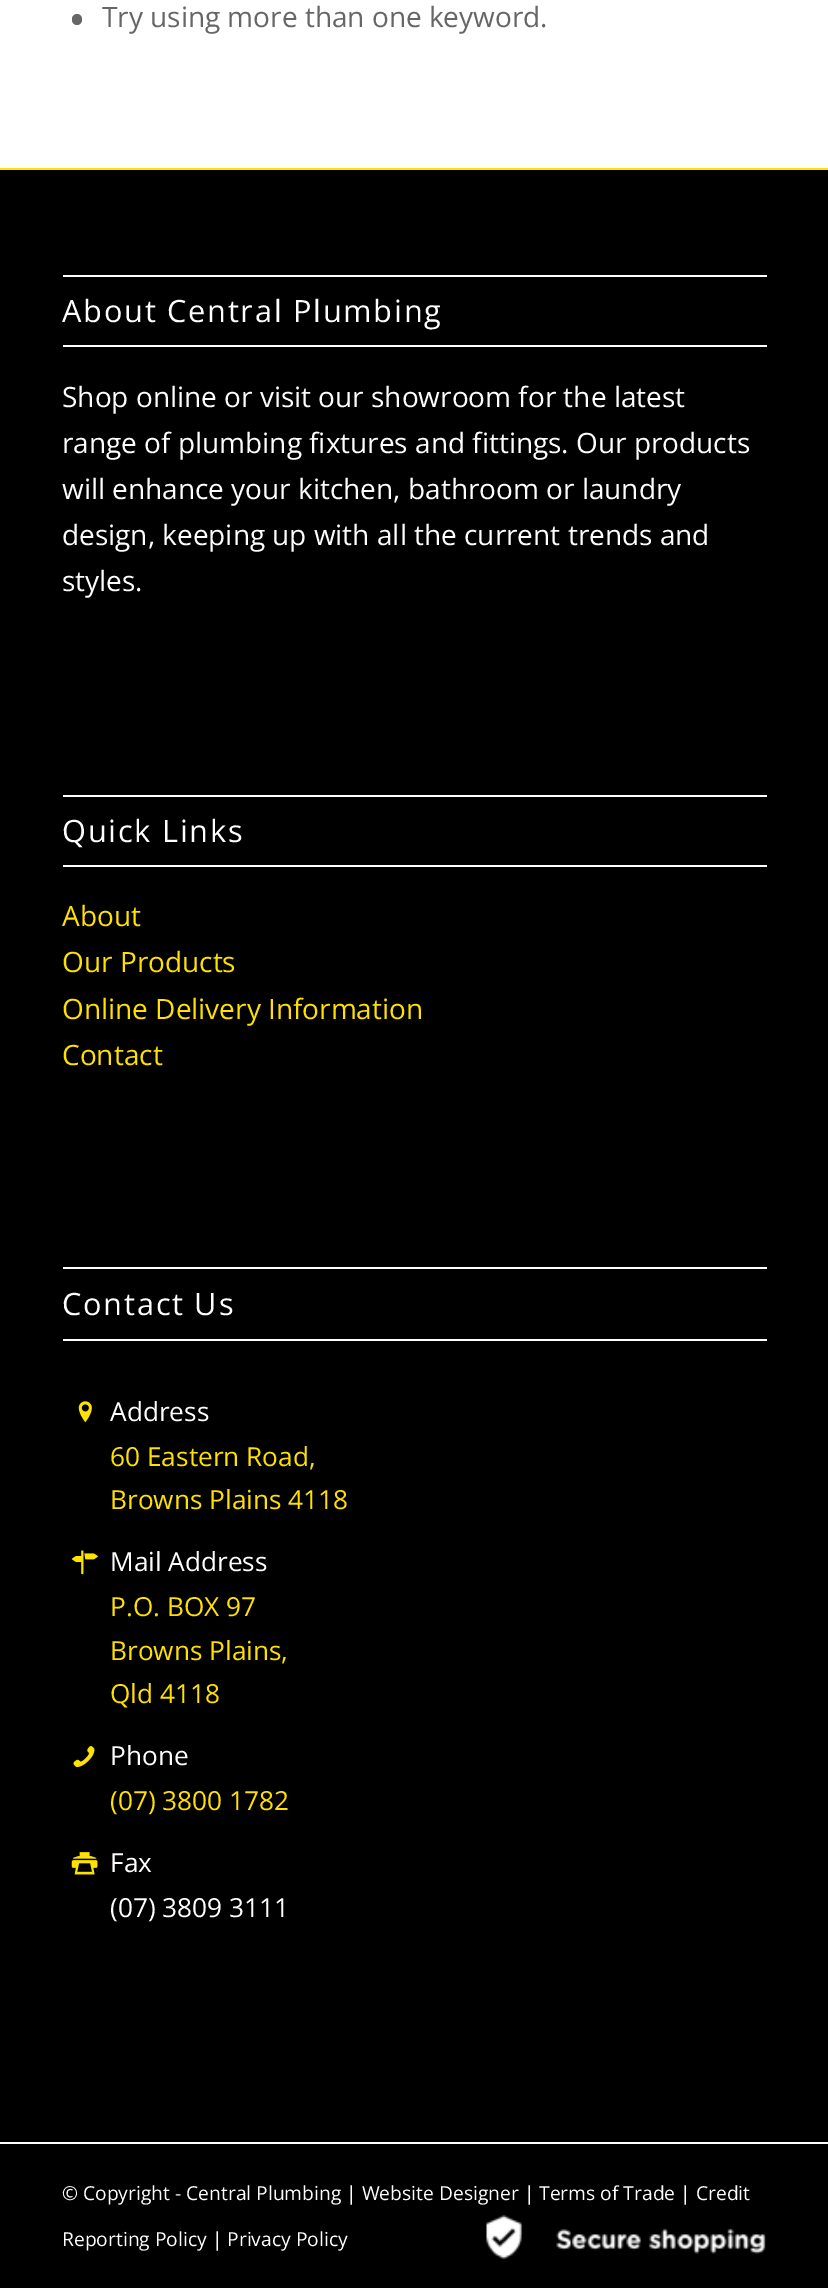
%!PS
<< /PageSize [828 2288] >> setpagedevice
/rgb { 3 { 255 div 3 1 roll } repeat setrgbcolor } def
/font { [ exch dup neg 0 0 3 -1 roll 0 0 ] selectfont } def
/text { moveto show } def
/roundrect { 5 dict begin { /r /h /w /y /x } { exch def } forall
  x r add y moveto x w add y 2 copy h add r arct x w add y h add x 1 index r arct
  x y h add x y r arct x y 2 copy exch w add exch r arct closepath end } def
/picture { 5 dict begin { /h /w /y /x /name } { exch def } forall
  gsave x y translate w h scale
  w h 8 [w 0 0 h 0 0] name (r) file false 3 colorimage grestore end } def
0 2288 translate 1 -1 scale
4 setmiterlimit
0 0 0 rgb
0 0 828 2288 rectfill
255 255 255 rgb
0 0 828 168 rectfill
102 102 102 rgb
72 14 10 11 5 roundrect fill
255 225 0 rgb
0 168 828 2 rectfill
255 255 255 rgb
63 275 704 2 rectfill
63 345 704 2 rectfill
63 795 704 2 rectfill
63 865 704 2 rectfill
63 1267 704 2 rectfill
63 1339 704 2 rectfill
(img_01.rgb) 78 1401 14 22 picture
(img_02.rgb) 71 1550 27 25 picture
(img_03.rgb) 73 1746 22 22 picture
(img_04.rgb) 71 1852 27 23 picture
0 2142 828 2 rectfill
(img_05.rgb) 486 2215 280 44 picture
/OpenSans-Regular 28 font
102 102 102 rgb
(Try using more than one keyword.) 102 27 text
/OpenSans-Regular 30.75 font
255 255 255 rgb
62 322 moveto 1.75 0 (About Central Plumbing) ashow
/OpenSans-Regular 28 font
(Shop online or visit our showroom for the latest) 62 407 text
(range of plumbing fixtures and fittings. Our products) 62 453 text
(will enhance your kitchen, bathroom or laundry) 62 499 text
(design, keeping up with all the current trends and) 62 545 text
(styles.) 62 591 text
/OpenSans-Regular 30.75 font
62 842 moveto 1.75 0 (Quick Links) ashow
/OpenSans-Regular 28 font
255 225 0 rgb
(About) 62 926 text
(Our Products) 62 972 text
(Online Delivery Information) 62 1019 text
(Contact) 62 1065 text
/OpenSans-Regular 30.75 font
255 255 255 rgb
62 1315 moveto 1.75 0 (Contact Us) ashow
/OpenSans-Regular 26.25 font
(Address) 110 1421 text
255 225 0 rgb
(60 Eastern Road,) 110 1466 text
(Browns Plains 4118) 110 1509 text
255 255 255 rgb
(Mail Address) 110 1571 text
255 225 0 rgb
(P.O. BOX 97) 110 1616 text
(Browns Plains,) 110 1660 text
(Qld 4118) 110 1703 text
255 255 255 rgb
(Phone) 110 1765 text
255 225 0 rgb
(\(07\) 3800 1782) 110 1810 text
255 255 255 rgb
(Fax) 110 1872 text
(\(07\) 3809 3111) 110 1917 text
/OpenSans-Regular 19.25 font
(© Copyright - Central Plumbing | Website Designer | Terms of Trade | Credit) 62 2200 text
(Reporting Policy | Privacy Policy) 62 2246 text
showpage
